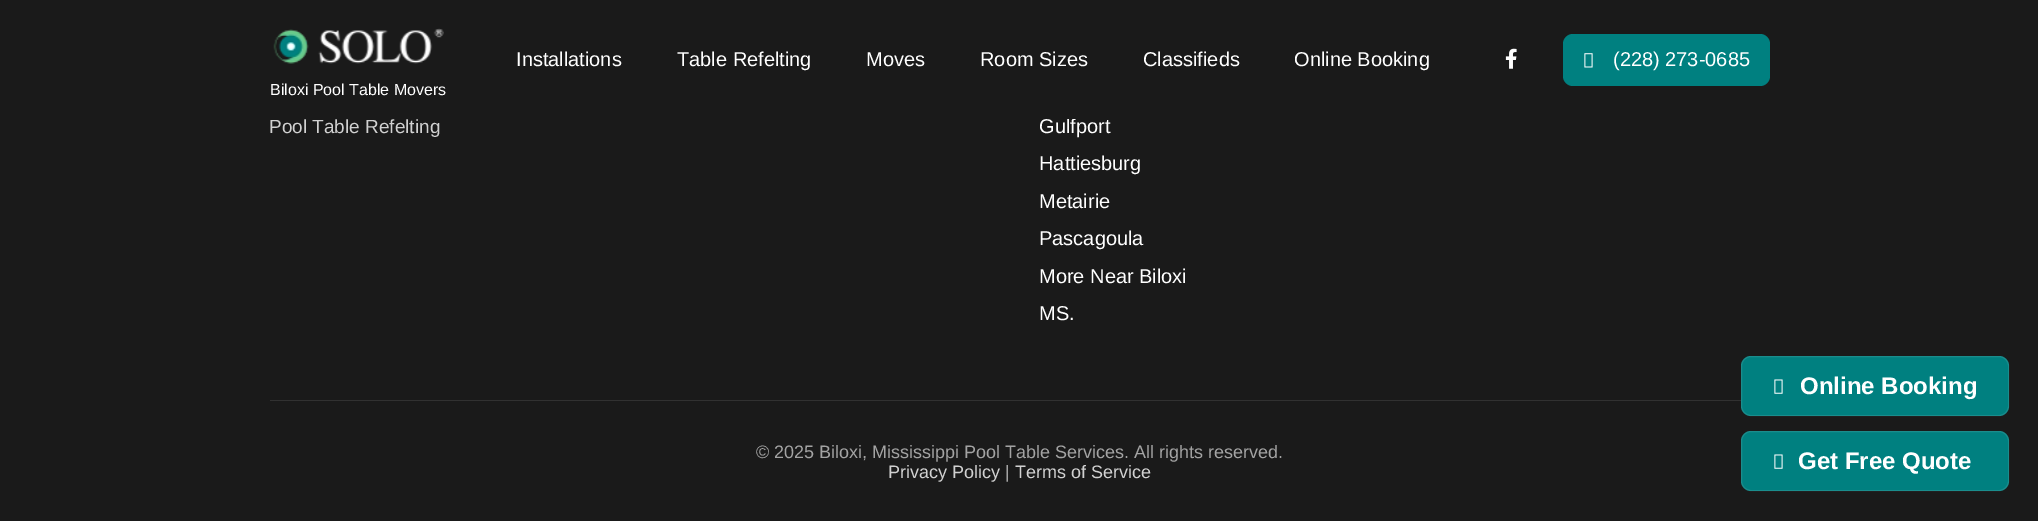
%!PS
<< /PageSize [2038 521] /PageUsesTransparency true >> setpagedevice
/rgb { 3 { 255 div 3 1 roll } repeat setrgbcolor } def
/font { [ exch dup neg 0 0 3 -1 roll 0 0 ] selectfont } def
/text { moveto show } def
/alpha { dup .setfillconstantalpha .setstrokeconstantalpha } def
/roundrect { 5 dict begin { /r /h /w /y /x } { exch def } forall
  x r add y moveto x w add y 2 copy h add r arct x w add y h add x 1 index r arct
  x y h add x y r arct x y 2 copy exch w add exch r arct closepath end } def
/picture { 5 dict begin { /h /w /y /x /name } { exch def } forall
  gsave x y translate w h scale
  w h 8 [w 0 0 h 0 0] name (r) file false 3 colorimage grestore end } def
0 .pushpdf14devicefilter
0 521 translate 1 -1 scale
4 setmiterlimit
26 26 26 rgb
0 0 2038 521 rectfill
(img_01.rgb) 1505 48 12 21 picture
0 128 128 rgb
1563 34 207 52 10 roundrect fill
(img_02.rgb) 1584 53 9 15 picture
(img_03.rgb) 273 28 171 36 picture
49 49 49 rgb
270 400 1471 1 rectfill
0 128 128 rgb
1741 356 268 60 10 roundrect fill
0.1 alpha
255 255 255 rgb
1741.5 356.5 267 59 9.5 roundrect stroke
1 alpha
(img_04.rgb) 1774 379 9 15 picture
0 128 128 rgb
1741 431 268 60 10 roundrect fill
0.1 alpha
255 255 255 rgb
1741.5 431.5 267 59 9.5 roundrect stroke
1 alpha
(img_04.rgb) 1774 454 9 15 picture
/LiberationSans-Regular 20 font
(Installations) 516 66 text
(Table Refelting) 677 66 text
(Moves) 866 66 text
(Room Sizes) 980 66 text
(Classifieds) 1143 66 text
(Online Booking) 1294 66 text
(\(228\) 273-0685) 1613 66 text
/LiberationSans-Regular 16 font
(Biloxi Pool Table Movers) 270 95 text
/LiberationSans-Regular 19 font
209 209 209 rgb
(Pool Table Refelting) 269 133 text
/LiberationSans-Regular 20 font
255 255 255 rgb
(Gulfport) 1039 133 text
26 26 26 rgb
1067 118 10 1 rectfill
255 255 255 rgb
(Hattiesburg) 1039 170 text
(Metairie) 1039 208 text
(Pascagoula) 1039 245 text
(More Near Biloxi) 1039 283 text
(MS.) 1039 320 text
/LiberationSans-Regular 18 font
163 163 163 rgb
(© 2025 Biloxi, Mississippi Pool Table Services. All rights reserved.) 756 458 text
209 209 209 rgb
(Privacy Policy) 888 478 text
163 163 163 rgb
(|) 1005 478 text
209 209 209 rgb
(Terms of Service) 1015 478 text
/LiberationSans-Bold 24 font
255 255 255 rgb
(Online Booking) 1800 394 text
(Get Free Quote) 1798 469 text
.poppdf14devicefilter showpage
